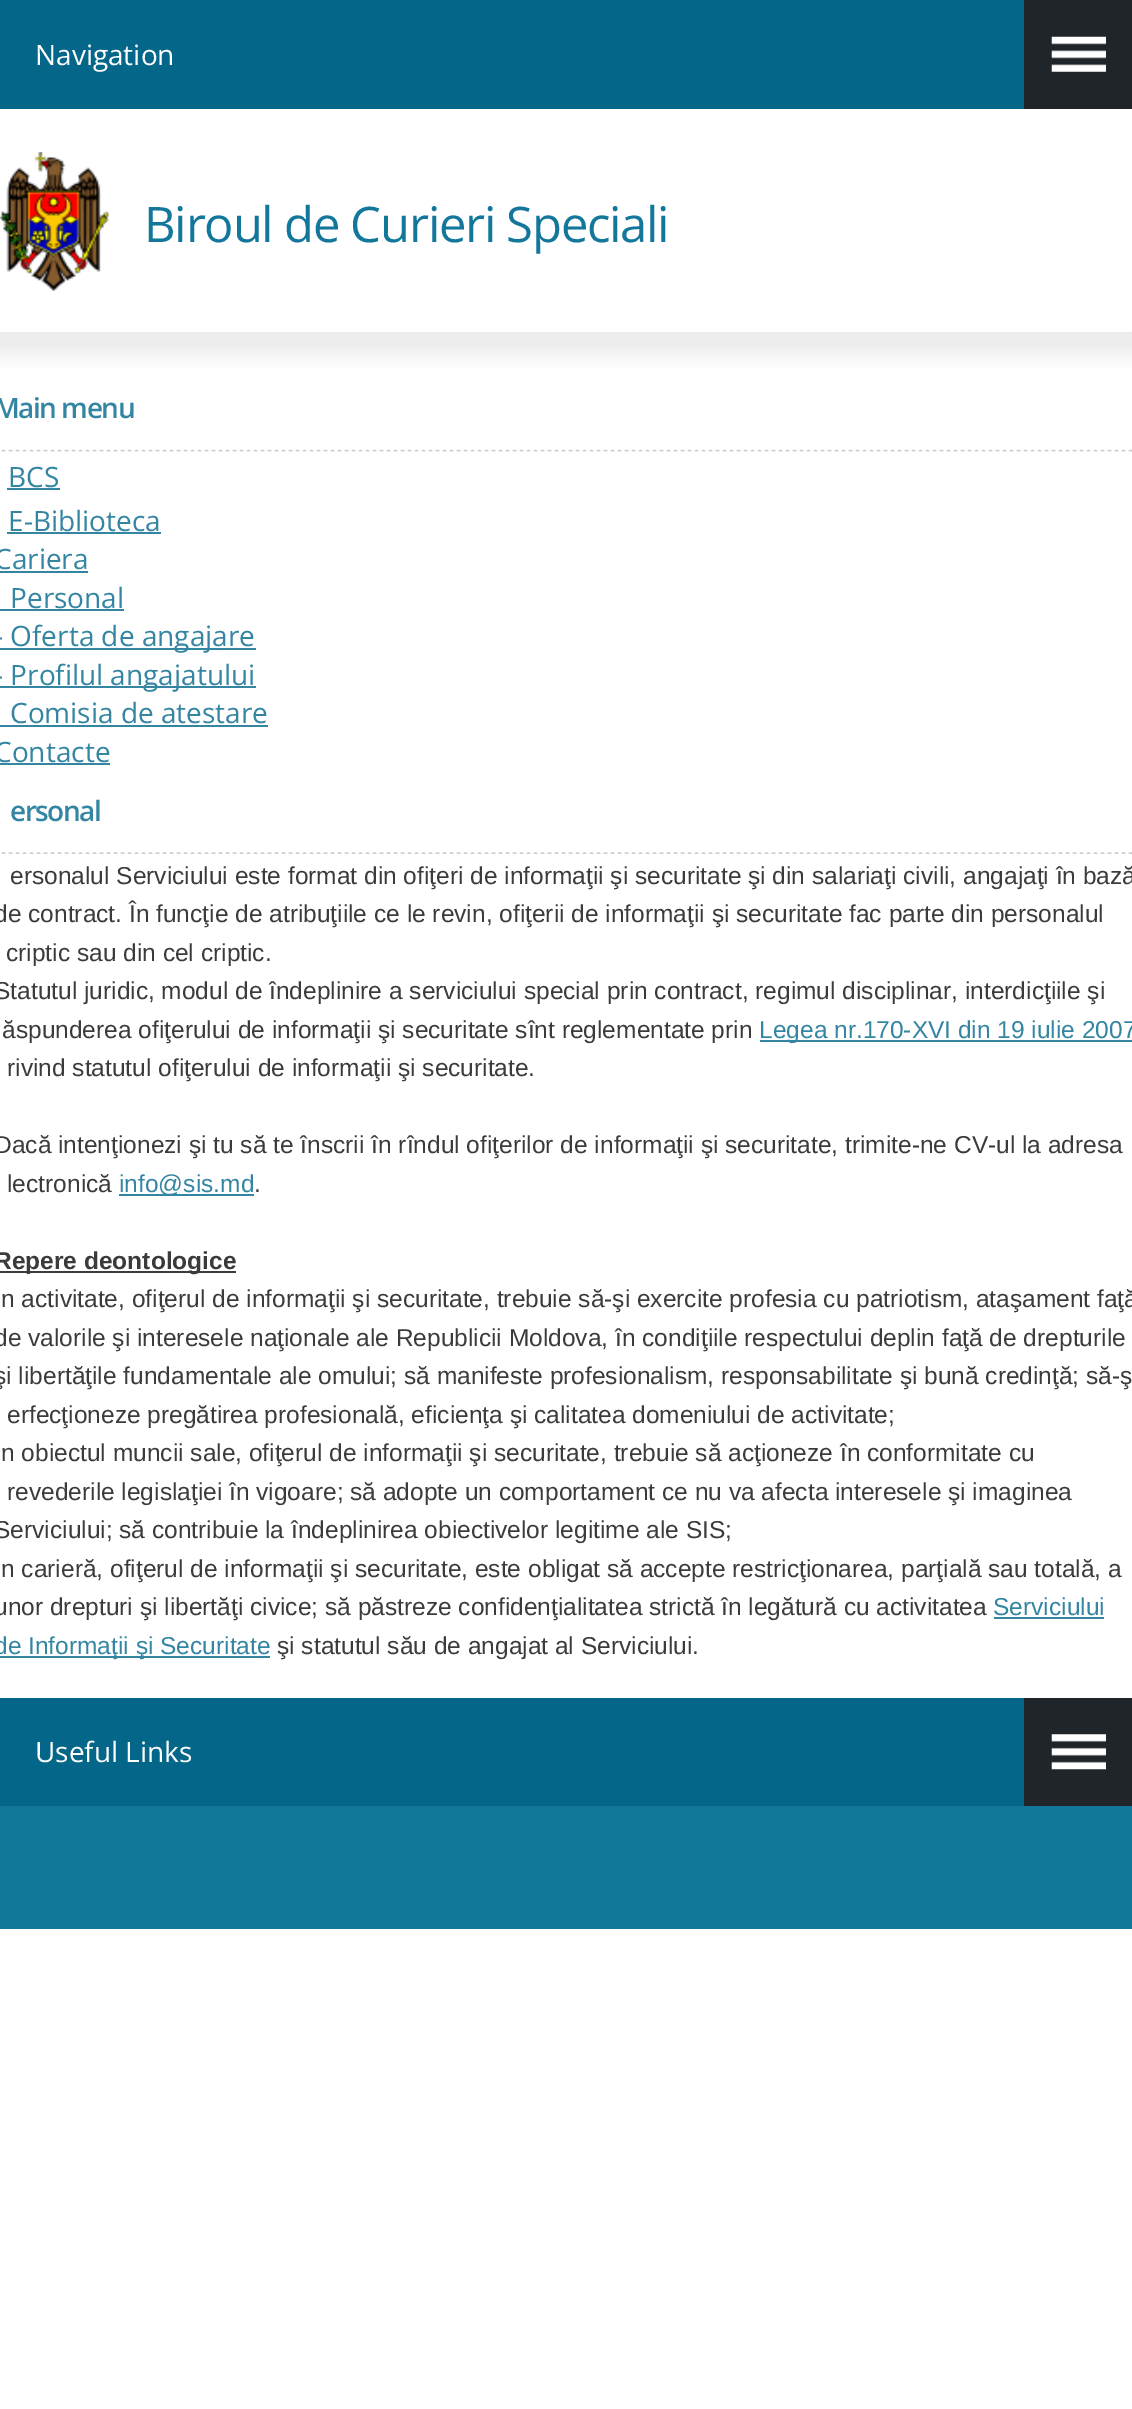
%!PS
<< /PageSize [1132 2409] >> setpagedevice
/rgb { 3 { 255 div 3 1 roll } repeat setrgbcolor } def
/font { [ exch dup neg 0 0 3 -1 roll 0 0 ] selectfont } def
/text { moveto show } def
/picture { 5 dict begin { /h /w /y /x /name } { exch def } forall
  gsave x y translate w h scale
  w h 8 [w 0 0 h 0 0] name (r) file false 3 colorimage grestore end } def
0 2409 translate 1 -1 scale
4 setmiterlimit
255 255 255 rgb
0 0 1132 2409 rectfill
4 102 137 rgb
0 0 1024 109 rectfill
32 37 41 rgb
1024 0 108 109 rectfill
(img_01.rgb) 1051 36 55 36 picture
(img_02.rgb) 0 152 109 139 picture
(img_03.rgb) 0 332 1132 1 picture
(img_04.rgb) 0 332 1132 36 picture
(img_05.rgb) 1 449 1131 3 picture
51 133 162 rgb
7 488 53 2 rectfill
7 532 154 2 rectfill
0 571 88 2 rectfill
0 609 124 2 rectfill
0 648 256 2 rectfill
0 686 256 2 rectfill
0 725 268 2 rectfill
0 763 110 2 rectfill
(img_06.rgb) 1 852 1131 2 picture
760 1040 372 2 rectfill
119 1194 135 2 rectfill
59 59 59 rgb
0 1271 236 2 rectfill
51 133 162 rgb
994 1617 110 2 rectfill
0 1656 270 2 rectfill
4 102 137 rgb
0 1698 1024 108 rectfill
32 37 41 rgb
1024 1698 108 108 rectfill
(img_07.rgb) 1051 1734 55 36 picture
19 119 155 rgb
0 1806 1132 123 rectfill
/OpenSans-Regular 28 font
255 255 255 rgb
(Navigation) 35 65 text
/OpenSans-Regular 49 font
19 119 156 rgb
144 242 moveto -1.25 0 (Biroul de Curieri Speciali) ashow
/OpenSans-SemiBold 28 font
51 133 162 rgb
-6 418 moveto -1.5 0 (Main menu) ashow
/OpenSans-Regular 28 font
(BCS) 8 487 text
(E-Biblioteca) 8 531 text
(Cariera) -6 569 text
(Personal) 10 608 text
(- Oferta de angajare) -6 646 text
(- Profilul angajatului) -6 685 text
(Comisia de atestare) 10 723 text
(Contacte) -6 762 text
/OpenSans-SemiBold 28 font
10 821 moveto -1.5 0 (ersonal) ashow
/LiberationSans-Regular 24.5 font
59 59 59 rgb
(ersonalul Serviciului este format din ofiţeri de informaţii şi securitate şi din salariaţi civili, angajaţi în bază) 10 884 text
(de contract. În funcţie de atribuţiile ce le revin, ofiţerii de informaţii şi securitate fac parte din personalul) -6 922 text
(criptic sau din cel criptic.) 6 961 text
(Statutul juridic, modul de îndeplinire a serviciului special prin contract, regimul disciplinar, interdicţiile şi) -6 999 text
(ăspunderea ofiţerului de informaţii şi securitate sînt reglementate prin) 2 1038 text
51 133 162 rgb
(Legea nr.170-XVI din 19 iulie 2007) 759 1038 text
59 59 59 rgb
(rivind statutul ofiţerului de informaţii şi securitate.) 7 1076 text
(Dacă intenţionezi şi tu să te înscrii în rîndul ofiţerilor de informaţii şi securitate, trimite-ne CV-ul la adresa) -6 1153 text
(lectronică) 7 1192 text
51 133 162 rgb
(info@sis.md) 119 1192 text
59 59 59 rgb
(.) 254 1192 text
/LiberationSans-Bold 24.5 font
(Repere deontologice) -6 1269 text
/LiberationSans-Regular 24.5 font
(n activitate, ofiţerul de informaţii şi securitate, trebuie să-şi exercite profesia cu patriotism, ataşament faţă) 1 1307 text
(de valorile şi interesele naţionale ale Republicii Moldova, în condiţiile respectului deplin faţă de drepturile) -6 1346 text
(şi libertăţile fundamentale ale omului; să manifeste profesionalism, responsabilitate şi bună credinţă; să-ş) -6 1384 text
(erfecţioneze pregătirea profesională, eficienţa şi calitatea domeniului de activitate;) 7 1423 text
(n obiectul muncii sale, ofiţerul de informaţii şi securitate, trebuie să acţioneze în conformitate cu) 1 1461 text
(revederile legislaţiei în vigoare; să adopte un comportament ce nu va afecta interesele şi imaginea) 7 1500 text
(Serviciului; să contribuie la îndeplinirea obiectivelor legitime ale SIS;) -6 1538 text
(n carieră, ofiţerul de informaţii şi securitate, este obligat să accepte restricţionarea, parţială sau totală, a) 1 1577 text
(unor drepturi şi libertăţi civice; să păstreze confidenţialitatea strictă în legătură cu activitatea) -6 1615 text
51 133 162 rgb
(Serviciului) 993 1615 text
(de Informaţii şi Securitate) -6 1654 text
59 59 59 rgb
(şi statutul său de angajat al Serviciului.) 277 1654 text
/OpenSans-Regular 28 font
255 255 255 rgb
(Useful Links) 35 1762 text
showpage
